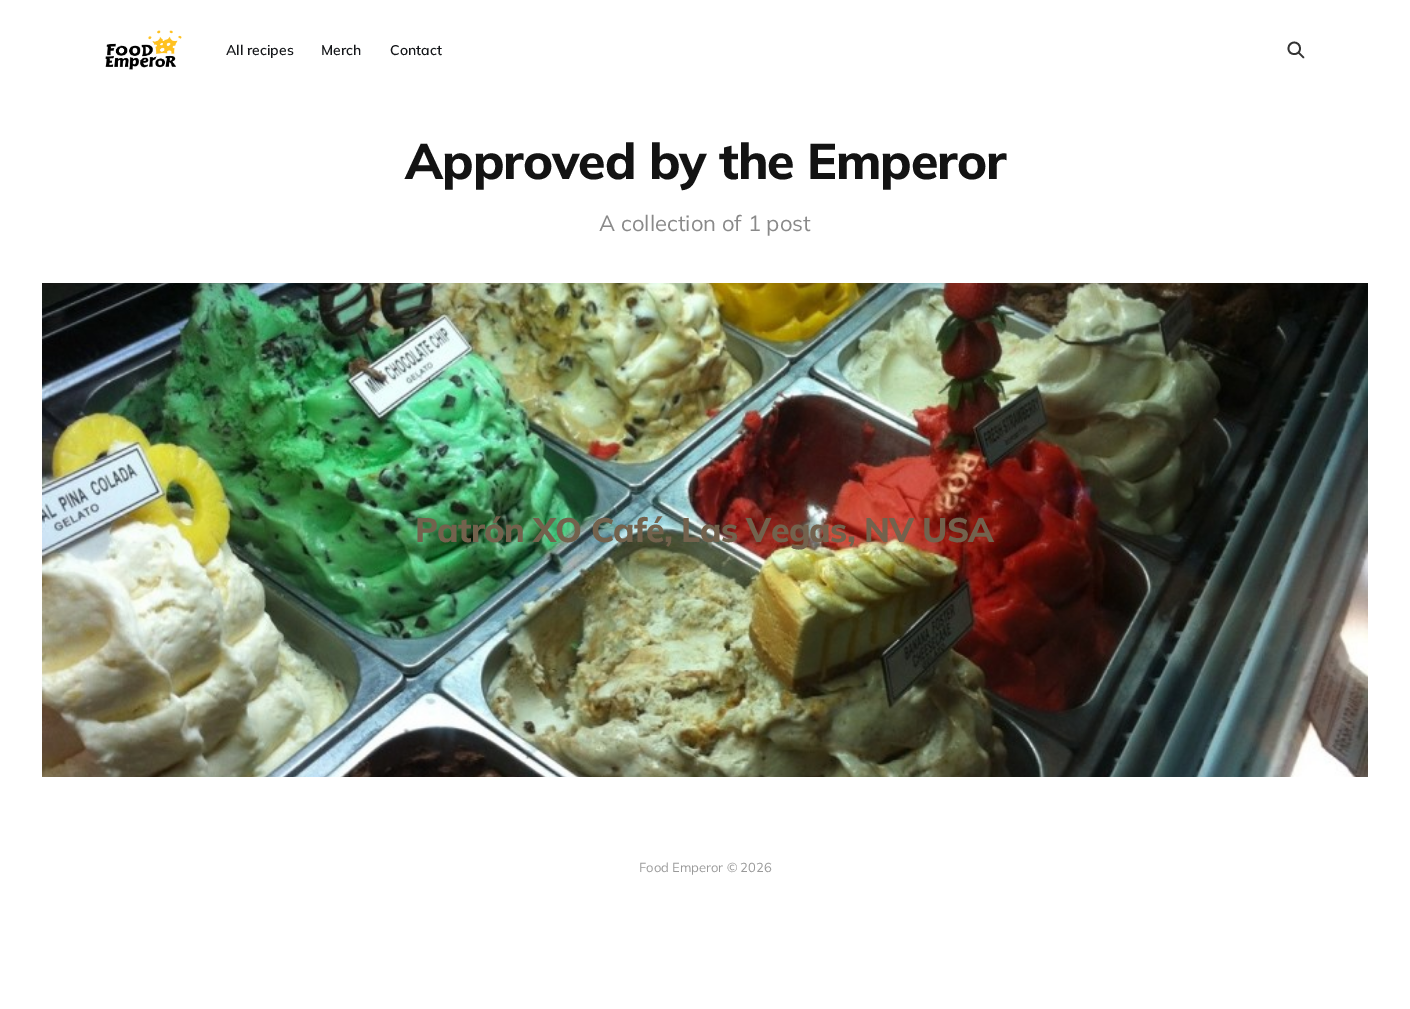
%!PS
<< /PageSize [1410 1009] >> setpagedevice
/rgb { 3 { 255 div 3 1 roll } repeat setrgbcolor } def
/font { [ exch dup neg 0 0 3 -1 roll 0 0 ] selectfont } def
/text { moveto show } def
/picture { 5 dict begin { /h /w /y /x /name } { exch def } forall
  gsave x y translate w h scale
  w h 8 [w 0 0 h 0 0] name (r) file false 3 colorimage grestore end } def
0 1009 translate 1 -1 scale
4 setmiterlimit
255 255 255 rgb
0 0 1410 1009 rectfill
(img_01.rgb) 105 30 77 40 picture
51 51 51 rgb
1.7 setlinewidth
1 setlinecap
1 setlinejoin
1303.5 57.5 moveto -5 -5 rlineto 1300 48.5 moveto 0 7.5 -11.5 7.5 -11.5 0 rcurveto 0 -8 11.5 -8 11.5 0 rcurveto closepath stroke
(img_02.rgb) 42 283 1326 494 picture
/Mulish-ExtraLight 14 font
21 23 26 rgb
(All recipes) 226 55 text
(Merch) 321 55 text
(Contact) 390 55 text
/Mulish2-ExtraLight 50 font
19 19 19 rgb
405 179 moveto -1 0 (Approved by the Emperor) ashow
/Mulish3-ExtraLight 22 font
137 137 137 rgb
(A collection of 1 post) 599 231 text
/Mulish2-ExtraLight 34 font
115 98 77 rgb
415 542 moveto -0.7 0 (Patrón XO Café, Las Vegas, NV USA) ashow
/Mulish3-ExtraLight 13 font
153 153 153 rgb
(Food Emperor © 2026) 639 872 text
showpage
